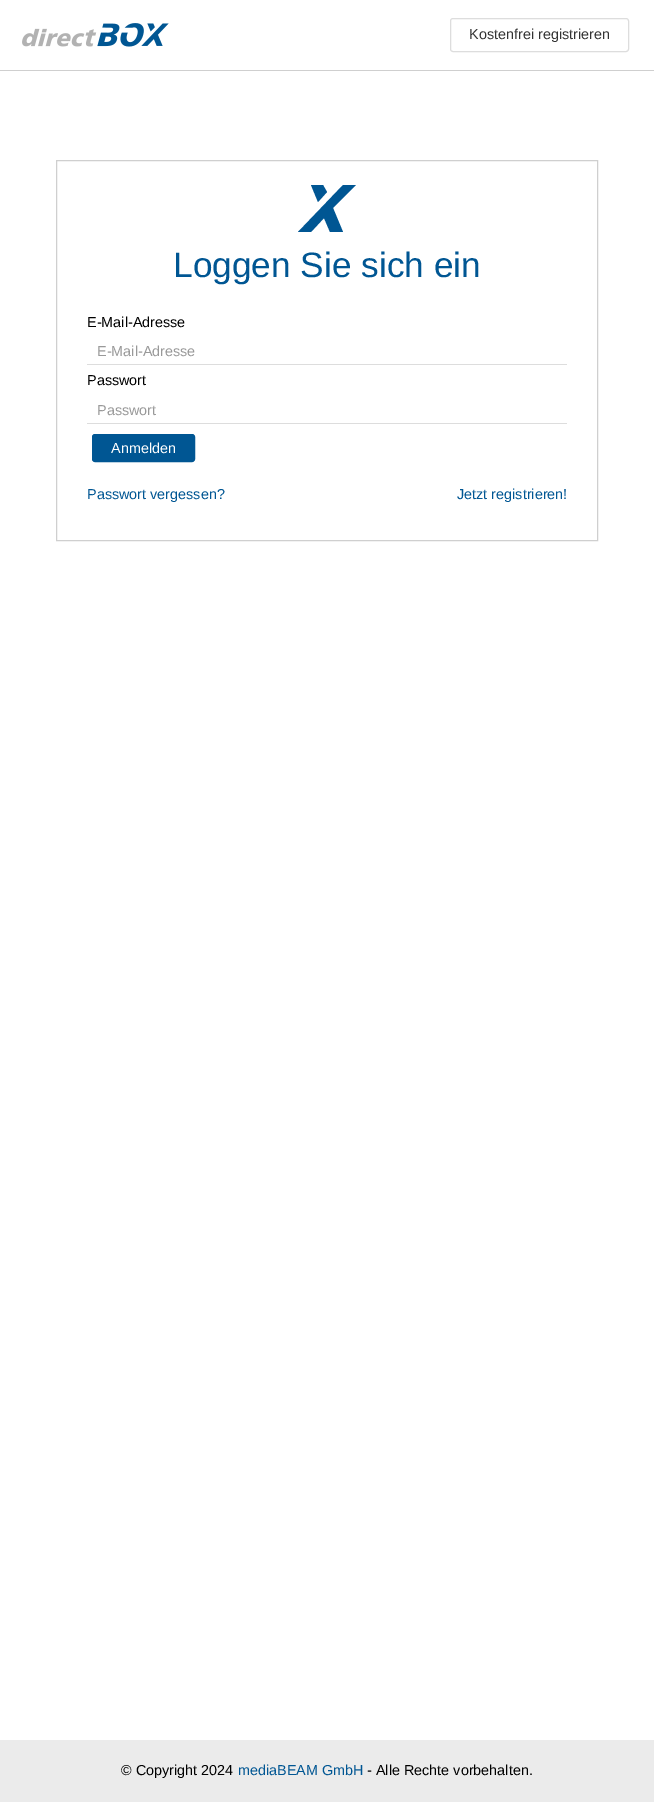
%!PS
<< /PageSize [654 1802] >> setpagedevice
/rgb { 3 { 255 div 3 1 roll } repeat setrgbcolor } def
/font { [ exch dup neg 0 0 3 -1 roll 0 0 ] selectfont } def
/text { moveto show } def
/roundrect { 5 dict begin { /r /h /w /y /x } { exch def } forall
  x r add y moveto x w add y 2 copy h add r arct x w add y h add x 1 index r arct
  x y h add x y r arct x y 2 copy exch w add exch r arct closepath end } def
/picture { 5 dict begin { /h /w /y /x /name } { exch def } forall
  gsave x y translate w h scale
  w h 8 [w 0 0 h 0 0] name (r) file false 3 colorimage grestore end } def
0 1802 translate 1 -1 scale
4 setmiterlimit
255 255 255 rgb
0 0 654 1802 rectfill
207 207 207 rgb
0 70 654 1 rectfill
(img_01.rgb) 22 23 147 24 picture
221 221 221 rgb
450.5 18.5 178 33 2.5 roundrect stroke
207 207 207 rgb
56.5 160.5 541 380 rectstroke
0 86 147 rgb
298 232 moveto 13 0 rlineto 13 -14 rlineto 6 14 rlineto 13 0 rlineto -10 -24 rlineto 23 -23 rlineto -13 0 rlineto closepath 327 192 moveto -9 10 rlineto -7 -17 rlineto 12 0 rlineto closepath fill
221 221 221 rgb
87 364 480 1 rectfill
87 423 480 1 rectfill
0 86 147 rgb
92.5 434.5 102 27 2.5 roundrect gsave fill grestore
stroke
235 235 235 rgb
0 1740 654 62 rectfill
/LiberationSans-Regular 14.4 font
51 51 51 rgb
(Kostenfrei registrieren) 469 39 text
/LiberationSans-Regular 35.25 font
0 86 147 rgb
(Loggen Sie sich ein) 173 277 text
/LiberationSans-Regular 14.4 font
0 0 0 rgb
(E-Mail-Adresse) 87 327 text
153 153 153 rgb
(E-Mail-Adresse) 97 356 text
0 0 0 rgb
(Passwort) 87 385 text
153 153 153 rgb
(Passwort) 97 415 text
255 255 255 rgb
(Anmelden) 111 453 text
0 86 147 rgb
(Passwort vergessen?) 87 499 text
(Jetzt registrieren!) 457 499 text
0 0 0 rgb
(© Copyright 2024) 121 1775 text
0 86 147 rgb
(mediaBEAM GmbH) 238 1775 text
0 0 0 rgb
(- Alle Rechte vorbehalten.) 367 1775 text
showpage
